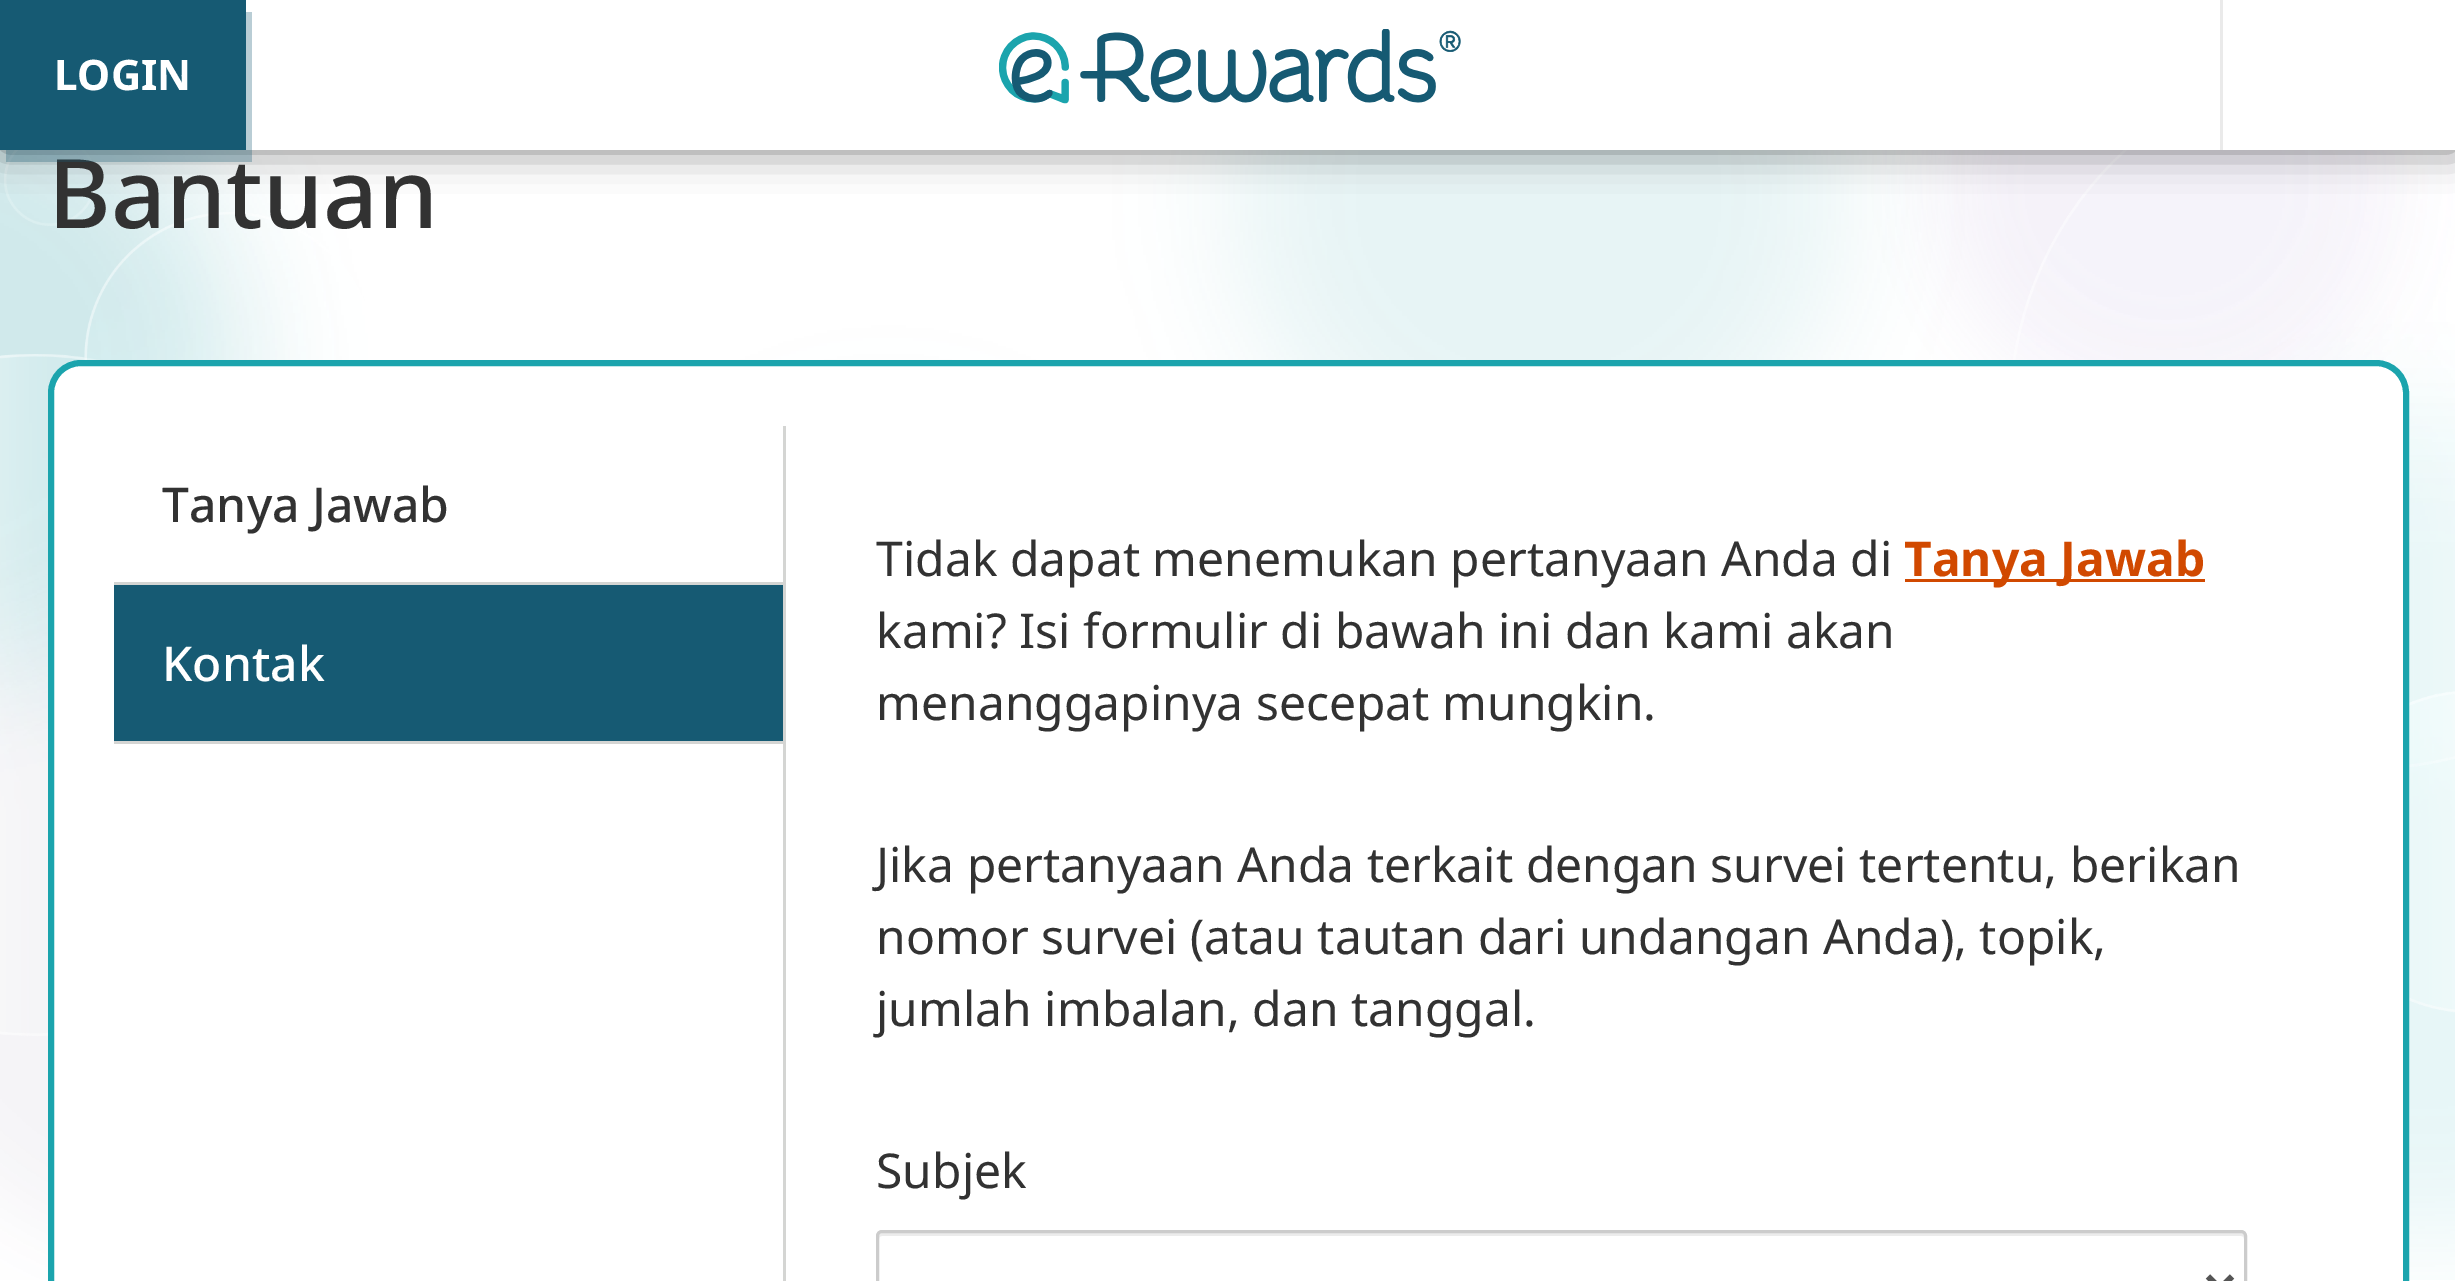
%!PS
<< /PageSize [2455 1281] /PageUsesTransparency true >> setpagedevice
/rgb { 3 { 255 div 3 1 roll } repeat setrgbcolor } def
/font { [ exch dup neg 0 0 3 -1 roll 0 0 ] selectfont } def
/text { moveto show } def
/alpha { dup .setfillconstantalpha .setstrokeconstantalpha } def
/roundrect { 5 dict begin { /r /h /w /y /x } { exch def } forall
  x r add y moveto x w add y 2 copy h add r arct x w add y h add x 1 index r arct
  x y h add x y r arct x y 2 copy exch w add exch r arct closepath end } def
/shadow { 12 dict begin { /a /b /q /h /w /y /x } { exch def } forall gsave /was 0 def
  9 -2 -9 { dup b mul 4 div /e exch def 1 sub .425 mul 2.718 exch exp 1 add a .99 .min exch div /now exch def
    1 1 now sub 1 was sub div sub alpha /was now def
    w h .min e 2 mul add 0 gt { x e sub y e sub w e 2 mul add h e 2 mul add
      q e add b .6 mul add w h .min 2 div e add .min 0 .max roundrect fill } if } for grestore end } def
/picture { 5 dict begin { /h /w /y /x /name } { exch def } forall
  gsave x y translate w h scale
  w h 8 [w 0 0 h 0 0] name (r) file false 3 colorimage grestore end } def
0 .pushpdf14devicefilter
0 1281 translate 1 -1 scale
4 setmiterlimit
255 255 255 rgb
0 0 2455 1281 rectfill
(img_01.rgb) 0 150 2455 1130 picture
0 0 0 rgb
0 0 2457 150 0 19.5 0.5 shadow
255 255 255 rgb
246 0 2209 150 rectfill
234 234 234 rgb
2220 0 3 150 rectfill
(img_02.rgb) 999 29 462 75 picture
255 255 255 rgb
51 363 2355 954 30 roundrect gsave fill grestore
27 164 173 rgb
6 setlinewidth
stroke
212 213 211 rgb
114 582 669 3 rectfill
22 90 115 rgb
114 585 669 156 rectfill
212 213 211 rgb
114 741 669 3 rectfill
783 426 3 855 rectfill
209 73 0 rgb
1905 579 300 3 rectfill
236 236 236 rgb
882 1236 moveto 1359 0 rlineto 2 0 3 1 3 3 rcurveto 0 -2 0 -6 -3 -6 rcurveto -1359 0 rlineto -1 0 -2 1 -3 2 rcurveto 0 4 rlineto 0 -2 1 -3 3 -3 rcurveto closepath fill
204 204 204 rgb
3 setlinewidth
877.5 1231.5 1368 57 4.5 roundrect stroke
85 85 85 rgb
6 setlinewidth
2208 1276.5 moveto 12 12 rlineto 12 -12 rlineto stroke
/NotoSans-Medium 96 font
50 50 50 rgb
(Bantuan) 48 228 text
0.3 alpha
22 90 115 rgb
6 150 moveto 0 12 rlineto 246 0 rlineto 0 -150 rlineto -6 0 rlineto 0 138 rlineto closepath fill
1 alpha
0 0 246 150 rectfill
/NotoSans-Bold 42 font
255 255 255 rgb
(LOGIN) 54 90 text
/NotoSans-Medium 48 font
50 50 50 rgb
(Tanya Jawab) 162 522 text
255 255 255 rgb
(Kontak) 162 681 text
/NotoSans-Regular 48 font
50 50 50 rgb
(Tidak dapat menemukan pertanyaan Anda di) 876 576 text
/NotoSans-Bold 48 font
209 73 0 rgb
(Tanya Jawab) 1904 576 text
/NotoSans-Regular 48 font
50 50 50 rgb
(kami? Isi formulir di bawah ini dan kami akan) 876 648 text
(menanggapinya secepat mungkin.) 876 720 text
(Jika pertanyaan Anda terkait dengan survei tertentu, berikan) 876 882 text
(nomor survei \(atau tautan dari undangan Anda\), topik,) 876 954 text
(jumlah imbalan, dan tanggal.) 876 1026 text
(Subjek) 876 1188 text
.poppdf14devicefilter showpage
